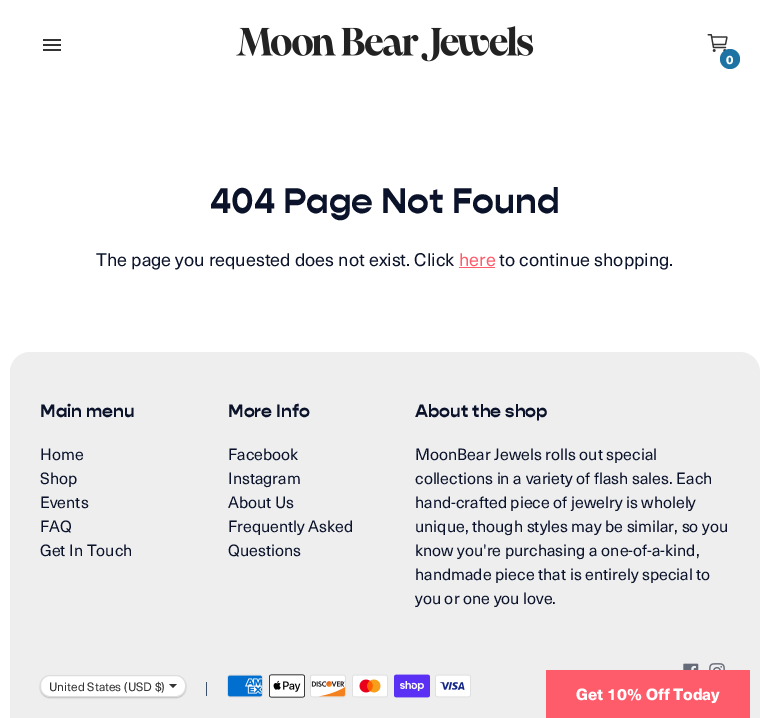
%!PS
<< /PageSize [770 718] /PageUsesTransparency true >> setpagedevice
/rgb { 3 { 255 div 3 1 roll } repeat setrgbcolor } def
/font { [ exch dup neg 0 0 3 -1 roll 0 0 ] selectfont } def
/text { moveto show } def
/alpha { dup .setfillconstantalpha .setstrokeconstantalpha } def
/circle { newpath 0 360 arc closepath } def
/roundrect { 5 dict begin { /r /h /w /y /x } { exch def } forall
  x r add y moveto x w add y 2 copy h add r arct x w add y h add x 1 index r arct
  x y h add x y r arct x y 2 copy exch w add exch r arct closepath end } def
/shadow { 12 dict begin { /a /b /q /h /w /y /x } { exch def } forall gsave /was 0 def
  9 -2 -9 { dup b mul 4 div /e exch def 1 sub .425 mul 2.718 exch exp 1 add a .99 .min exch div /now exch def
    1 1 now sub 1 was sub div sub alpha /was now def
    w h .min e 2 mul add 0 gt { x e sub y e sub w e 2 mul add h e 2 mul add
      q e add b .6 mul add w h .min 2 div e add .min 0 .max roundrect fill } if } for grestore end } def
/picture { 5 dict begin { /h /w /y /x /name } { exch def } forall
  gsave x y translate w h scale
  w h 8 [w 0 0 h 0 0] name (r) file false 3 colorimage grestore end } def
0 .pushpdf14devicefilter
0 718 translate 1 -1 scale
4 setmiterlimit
255 255 255 rgb
0 0 770 718 rectfill
(img_01.rgb) 43 39 18 12 picture
(img_02.rgb) 236 26 298 36 picture
(img_03.rgb) 707 34 21 18 picture
30 115 165 rgb
730 59 10 circle fill
238 238 238 rgb
30 352 moveto 710 0 rlineto 11 0 20 9 20 20 rcurveto 0 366 rlineto -750 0 rlineto 0 -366 rlineto 0 -11 9 -20 20 -20 rcurveto closepath fill
254 92 107 rgb
546 670 204 48 rectfill
459 267 36 1 rectfill
(img_04.rgb) 683 663 16 7 picture
(img_05.rgb) 709 663 16 7 picture
0 0 0 rgb
40 676 146 22 10 0.5 0.2 shadow
255 255 255 rgb
40.5 675.5 145 21 9.5 roundrect gsave fill grestore
221 221 221 rgb
stroke
51 51 51 rgb
173 688 moveto 4 -4 rlineto -8 0 rlineto closepath fill
58 80 107 rgb
206 682 1 14 rectfill
(img_06.rgb) 227 674 36 24 picture
(img_07.rgb) 269 674 36 24 picture
(img_08.rgb) 310 674 36 24 picture
(img_09.rgb) 352 674 36 24 picture
(img_10.rgb) 394 674 36 24 picture
(img_11.rgb) 435 674 36 24 picture
/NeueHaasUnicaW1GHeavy-Black 12 font
255 255 255 rgb
(0) 726 64 text
/NeueHaasUnicaW1GHeavy-Black 16 font
(Get 10% Off Today) 576 700 text
/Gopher-Bold 36 font
11 19 43 rgb
(404 Page Not Found) 210 213 text
/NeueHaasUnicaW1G-Regular 18 font
(The page you requested does not exist. Click) 96 266 text
254 92 107 rgb
(here) 459 266 text
11 19 43 rgb
(to continue shopping.) 499 266 text
/Gopher-Bold 18 font
(Main menu) 40 417 text
/NeueHaasUnicaW1G-Regular 16 font
(Home) 40 460 text
(Shop) 40 484 text
(Events) 40 508 text
(FAQ) 40 532 text
(Get In Touch) 40 556 text
/Gopher-Bold 18 font
(More Info) 228 417 text
/NeueHaasUnicaW1G-Regular 16 font
(Facebook) 228 460 text
(Instagram) 228 484 text
(About Us) 228 508 text
(Frequently Asked) 228 532 text
(Questions) 228 556 text
/Gopher-Bold 18 font
(About the shop) 415 417 text
/NeueHaasUnicaW1G-Regular 16 font
(MoonBear Jewels rolls out special) 415 460 text
(collections in a variety of flash sales. Each) 415 484 text
(hand-crafted piece of jewelry is wholely) 415 508 text
(unique, though styles may be similar, so you) 415 532 text
(know you're purchasing a one-of-a-kind,) 415 556 text
(handmade piece that is entirely special to) 415 580 text
(you or one you love.) 415 604 text
/NeueHaasUnicaW1G-Regular 12 font
51 51 51 rgb
(United States \(USD $\)) 49 691 text
.poppdf14devicefilter showpage
